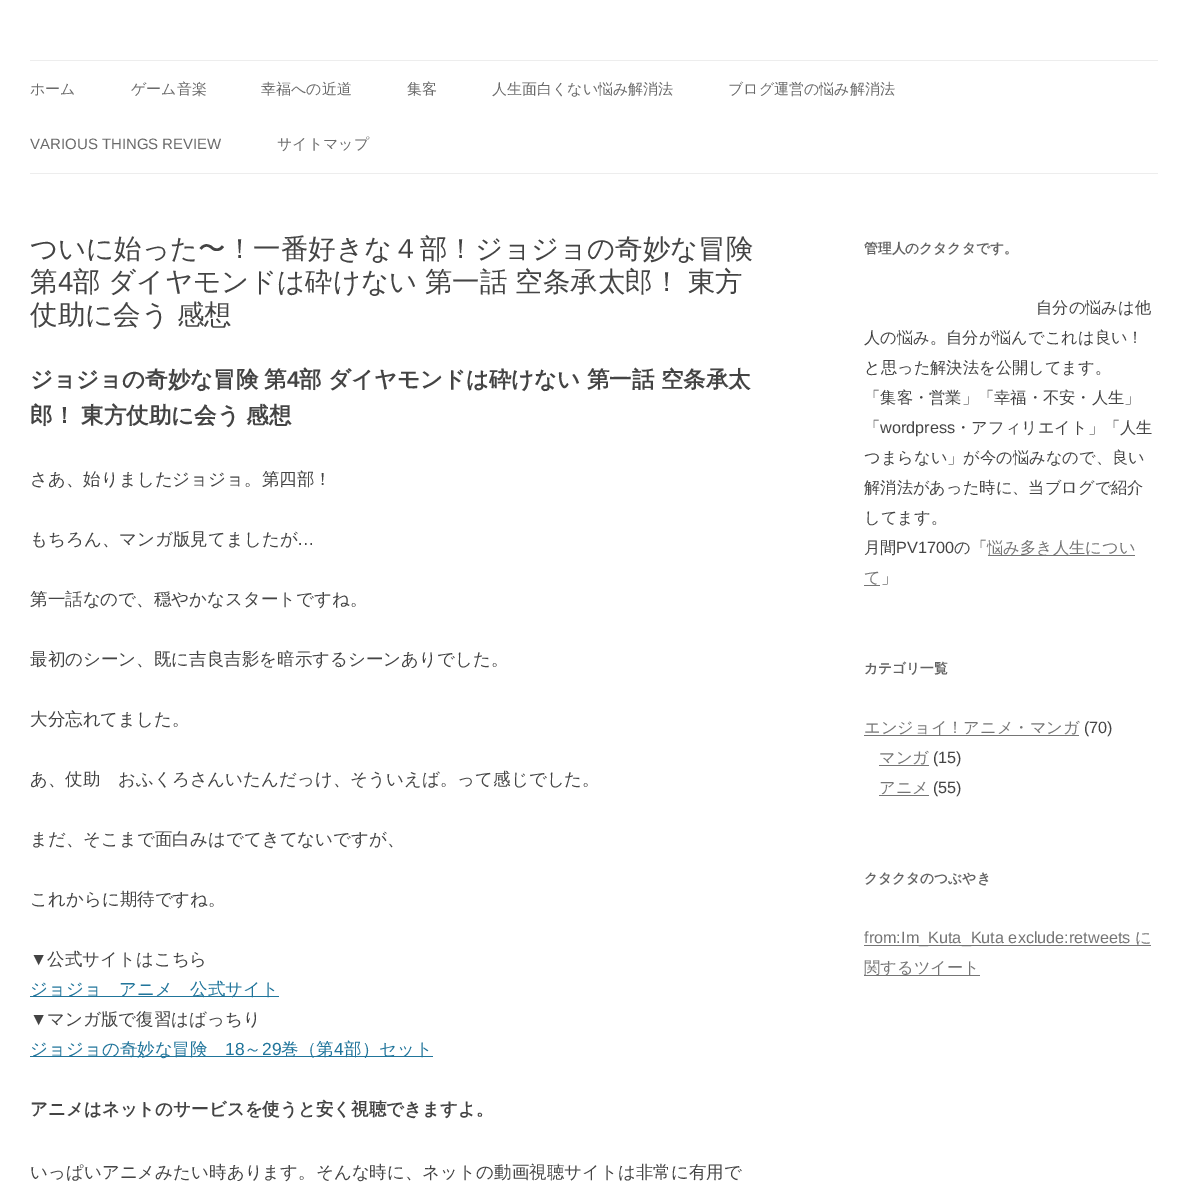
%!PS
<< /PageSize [1187 1195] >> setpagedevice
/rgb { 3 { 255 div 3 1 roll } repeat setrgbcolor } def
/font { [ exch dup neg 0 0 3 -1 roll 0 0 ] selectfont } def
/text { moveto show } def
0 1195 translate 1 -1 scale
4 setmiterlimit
255 255 255 rgb
0 0 1187 1195 rectfill
237 237 237 rgb
30 60 1128 1 rectfill
30 173 1128 1 rectfill
33 117 155 rgb
30 996 249 1 rectfill
30 1056 403 1 rectfill
117 117 117 rgb
988 555 147 1 rectfill
864 585 16 1 rectfill
864 735 215 1 rectfill
879 765 50 1 rectfill
879 795 50 1 rectfill
864 945 287 1 rectfill
864 975 116 1 rectfill
/WenQuanYiZenHei-Medium 15 font
106 106 106 rgb
(ホーム) 30 94 text
(ゲーム音楽) 131 94 text
(幸福への近道) 261 94 text
(集客) 407 94 text
(人生面白くない悩み解消法) 492 94 text
(ブログ運営の悩み解消法) 728 94 text
/LiberationSans-Regular 15 font
(VARIOUS THINGS REVIEW) 30 149 text
/WenQuanYiZenHei-Medium 15 font
(サイトマップ) 277 149 text
/WenQuanYiZenHei-Medium 27.5 font
68 68 68 rgb
(ついに始った〜！一番好きな４部！ジョジョの奇妙な冒険) 30 258 text
(第) 30 291 text
/LiberationSans-Regular 27.5 font
(4) 58 291 text
/WenQuanYiZenHei-Medium 27.5 font
73 291 moveto -0.5 0 32 (部 ダイヤモンドは砕けない 第一話 空条承太郎！ 東方) widthshow
30 324 moveto -0.5 0 32 (仗助に会う 感想) widthshow
/WenQuanYiZenHei-Bold 22.5 font
30 387 moveto -0.5 0 32 (ジョジョの奇妙な冒険 第) widthshow
/LiberationSans-Bold 22.5 font
(4) 287 387 text
/WenQuanYiZenHei-Bold 22.5 font
299 387 moveto -0.5 0 32 (部 ダイヤモンドは砕けない 第一話 空条承太) widthshow
30 423 moveto -0.5 0 32 (郎！ 東方仗助に会う 感想) widthshow
/WenQuanYiZenHei-Medium 17.5 font
(さあ、始りましたジョジョ。第四部！) 30 485 text
(もちろん、マンガ版見てましたが) 30 545 text
/LiberationSans-Regular 17.5 font
(…) 297 545 text
/WenQuanYiZenHei-Medium 17.5 font
(第一話なので、穏やかなスタートですね。) 30 605 text
(最初のシーン、既に吉良吉影を暗示するシーンありでした。) 30 665 text
(大分忘れてました。) 30 725 text
(あ、仗助　おふくろさんいたんだっけ、そういえば。って感じでした。) 30 785 text
(まだ、そこまで面白みはでてきてないですが、) 30 845 text
(これからに期待ですね。) 30 905 text
/LiberationSans-Regular 17.5 font
(▼) 30 965 text
/WenQuanYiZenHei-Medium 17.5 font
(公式サイトはこちら) 47 965 text
33 117 155 rgb
(ジョジョ　アニメ　公式サイト) 30 995 text
/LiberationSans-Regular 17.5 font
68 68 68 rgb
(▼) 30 1025 text
/WenQuanYiZenHei-Medium 17.5 font
(マンガ版で復習はばっちり) 47 1025 text
33 117 155 rgb
(ジョジョの奇妙な冒険) 30 1055 text
/LiberationSans-Regular 17.5 font
(18) 225 1055 text
/WenQuanYiZenHei-Medium 17.5 font
(～) 244 1055 text
/LiberationSans-Regular 17.5 font
(29) 262 1055 text
/WenQuanYiZenHei-Medium 17.5 font
(巻（第) 281 1055 text
/LiberationSans-Regular 17.5 font
(4) 334 1055 text
/WenQuanYiZenHei-Medium 17.5 font
(部）セット) 344 1055 text
/WenQuanYiZenHei-Bold 17.5 font
68 68 68 rgb
(アニメはネットのサービスを使うと安く視聴できますよ。) 30 1115 text
/WenQuanYiZenHei-Medium 17.5 font
(いっぱいアニメみたい時あります。そんな時に、ネットの動画視聴サイトは非常に有用で) 30 1178 text
/WenQuanYiZenHei-Bold 13.75 font
99 99 99 rgb
(管理人のクタクタです。) 864 253 text
/WenQuanYiZenHei-Medium 16.25 font
68 68 68 rgb
(自分の悩みは他) 1036 313 text
(人の悩み。自分が悩んでこれは良い！) 864 343 text
(と思った解決法を公開してます。) 864 373 text
(「集客・営業」「幸福・不安・人生」) 864 403 text
(「) 864 433 text
/LiberationSans-Regular 16.25 font
(wordpress) 880 433 text
/WenQuanYiZenHei-Medium 16.25 font
(・アフィリエイト」「人生) 955 433 text
(つまらない」が今の悩みなので、良い) 864 463 text
(解消法があった時に、当ブログで紹介) 864 493 text
(してます。) 864 523 text
(月間) 864 553 text
/LiberationSans-Regular 16.25 font
(PV1700) 896 553 text
/WenQuanYiZenHei-Medium 16.25 font
(の「) 954 553 text
117 117 117 rgb
(悩み多き人生につい) 987 553 text
(て) 864 583 text
68 68 68 rgb
(」) 881 583 text
/WenQuanYiZenHei-Bold 13.75 font
99 99 99 rgb
(カテゴリ一覧) 864 673 text
/WenQuanYiZenHei-Medium 16.25 font
117 117 117 rgb
(エンジョイ！アニメ・マンガ) 864 733 text
/LiberationSans-Regular 16.25 font
68 68 68 rgb
(\(70\)) 1084 733 text
/WenQuanYiZenHei-Medium 16.25 font
117 117 117 rgb
(マンガ) 879 763 text
/LiberationSans-Regular 16.25 font
68 68 68 rgb
(\(15\)) 933 763 text
/WenQuanYiZenHei-Medium 16.25 font
117 117 117 rgb
(アニメ) 879 793 text
/LiberationSans-Regular 16.25 font
68 68 68 rgb
(\(55\)) 933 793 text
/WenQuanYiZenHei-Bold 13.75 font
99 99 99 rgb
(クタクタのつぶやき) 864 883 text
/LiberationSans-Regular 16.25 font
117 117 117 rgb
(from:Im_Kuta_Kuta exclude:retweets) 864 943 text
/WenQuanYiZenHei-Medium 16.25 font
(に) 1135 943 text
(関するツイート) 864 973 text
showpage
